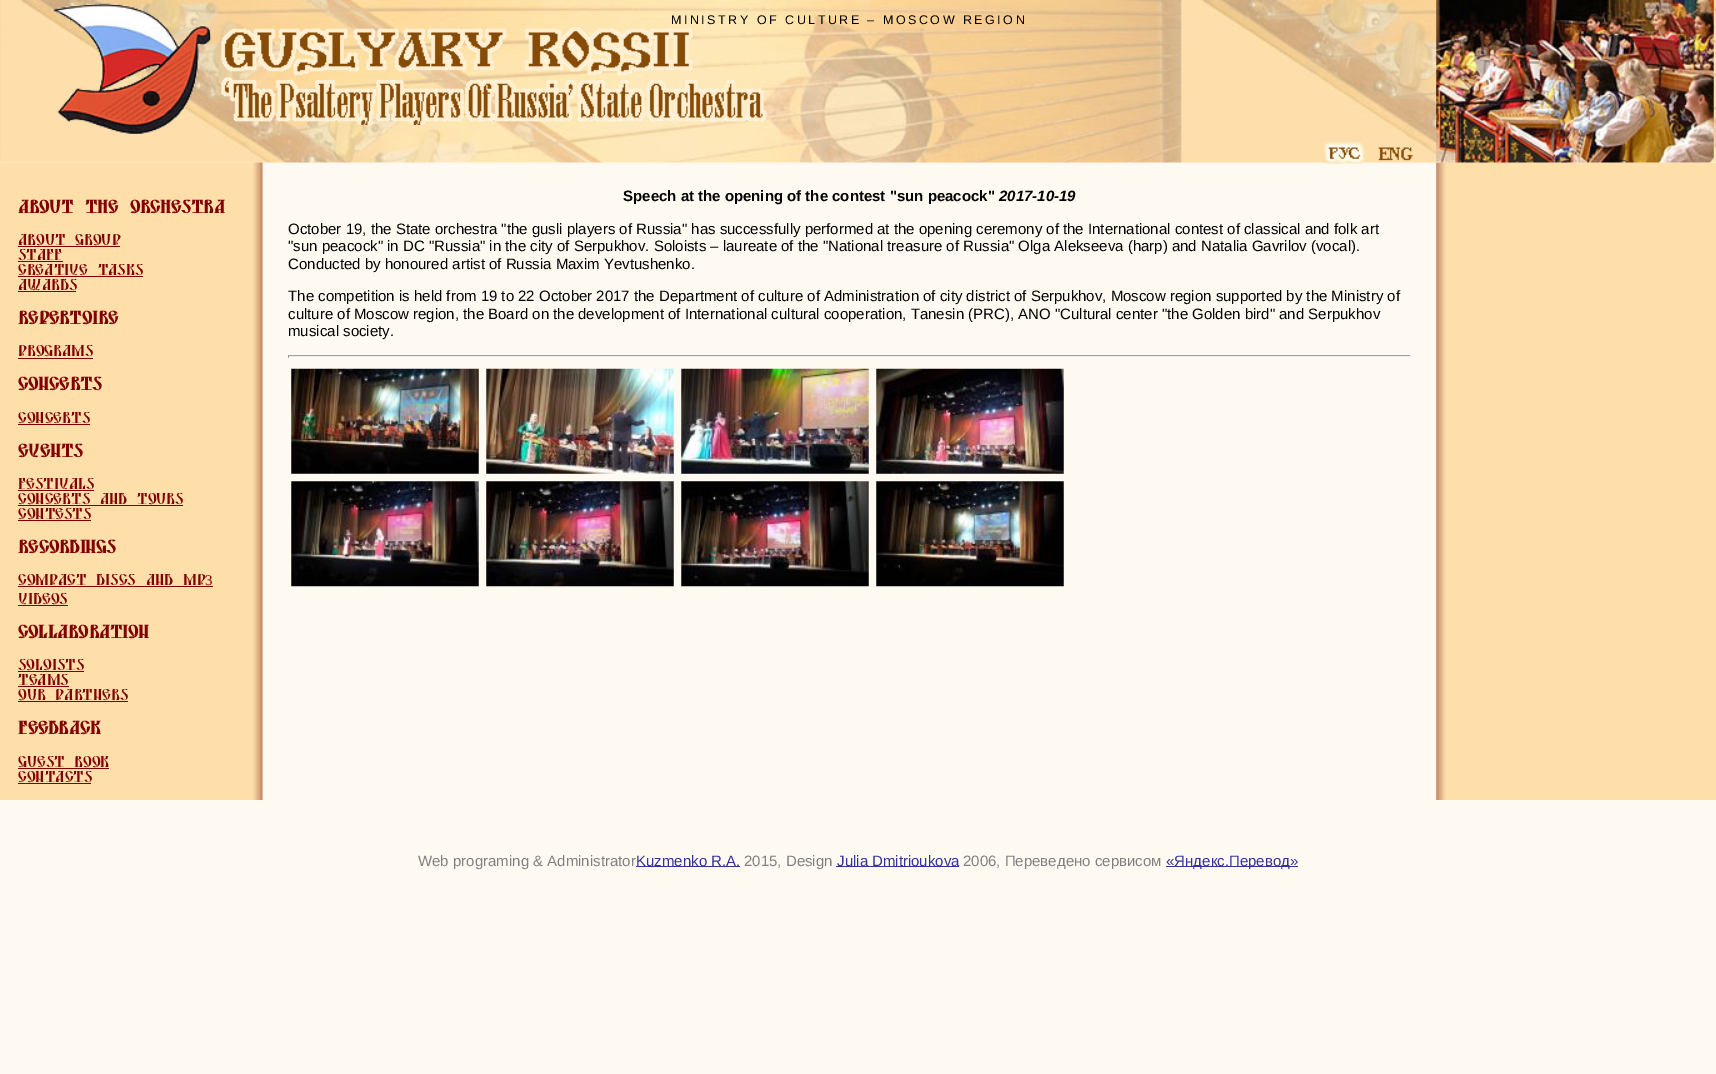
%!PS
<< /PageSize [1716 1074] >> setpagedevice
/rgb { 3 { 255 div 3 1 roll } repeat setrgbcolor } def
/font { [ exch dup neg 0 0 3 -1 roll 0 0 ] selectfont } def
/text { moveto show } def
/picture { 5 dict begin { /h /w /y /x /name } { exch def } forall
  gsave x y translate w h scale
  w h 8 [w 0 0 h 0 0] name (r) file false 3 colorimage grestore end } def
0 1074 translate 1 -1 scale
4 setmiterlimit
255 250 241 rgb
0 0 1716 1074 rectfill
(img_01.rgb) 0 0 1716 163 picture
(img_02.rgb) 51 3 161 131 picture
(img_03.rgb) 221 27 546 98 picture
254 223 170 rgb
1436 163 280 637 rectfill
(img_16.rgb) 1436 162 263 638 picture
(img_04.rgb) 1436 0 278 163 picture
(img_05.rgb) 1323 142 42 22 picture
(img_06.rgb) 1378 147 35 14 picture
262 163 1 637 rectfill
(img_07.rgb) 0 162 263 638 picture
128 0 0 rgb
18 246 102 1 rectfill
18 261 45 1 rectfill
18 276 125 1 rectfill
18 291 58 1 rectfill
18 358 75 1 rectfill
18 424 72 1 rectfill
18 490 76 1 rectfill
18 505 165 1 rectfill
18 520 73 1 rectfill
18 586 195 1 rectfill
18 605 50 1 rectfill
18 671 66 1 rectfill
18 686 51 1 rectfill
18 701 110 1 rectfill
18 768 91 1 rectfill
18 783 73 1 rectfill
159 159 159 rgb
288 355 1123 1 rectfill
238 238 238 rgb
1410 355 1 3 rectfill
288 356 1123 1 rectfill
159 159 159 rgb
288 355 1 3 rectfill
(img_08.rgb) 291 368 188 106 picture
(img_09.rgb) 486 368 188 106 picture
(img_10.rgb) 681 368 188 106 picture
(img_11.rgb) 876 368 188 106 picture
(img_12.rgb) 291 481 188 106 picture
(img_13.rgb) 486 481 188 106 picture
(img_14.rgb) 681 481 188 106 picture
(img_15.rgb) 876 481 188 106 picture
51 51 153 rgb
636 866 104 1 rectfill
836 866 123 1 rectfill
1166 866 132 1 rectfill
/LiberationSans-Regular 12.5 font
0 0 0 rgb
671 24 moveto 2.5 0 (MINISTRY OF CULTURE – MOSCOW REGION) ashow
/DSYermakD-Bold 17.5 font
128 0 0 rgb
(About the orchestra) 18 213 text
/DSYermakD-Regular 15 font
(About group) 18 245 text
(Staff) 18 260 text
(Creative tasks) 18 275 text
(Awards) 18 290 text
/DSYermakD-Bold 17.5 font
(Repertoire) 18 324 text
/DSYermakD-Regular 15 font
(Programs) 18 356 text
/DSYermakD-Bold 17.5 font
(Concerts) 18 390 text
/DSYermakD-Regular 15 font
(Concerts) 18 423 text
/DSYermakD-Bold 17.5 font
(Events) 18 457 text
/DSYermakD-Regular 15 font
(Festivals) 18 489 text
(Concerts and tours) 18 504 text
(Contests) 18 519 text
/DSYermakD-Bold 17.5 font
(Recordings) 18 553 text
/DSYermakD-Regular 15 font
(Compact discs and MP) 18 585 text
/LiberationSerif-Regular 15 font
(3) 205 585 text
/DSYermakD-Regular 15 font
(Videos) 18 604 text
/DSYermakD-Bold 17.5 font
(Collaboration) 18 638 text
/DSYermakD-Regular 15 font
(Soloists) 18 670 text
(Teams) 18 685 text
(Our partners) 18 700 text
/DSYermakD-Bold 17.5 font
(Feedback) 18 734 text
/DSYermakD-Regular 15 font
(Guest book) 18 767 text
(Contacts) 18 782 text
/LiberationSans-Bold 15 font
0 0 0 rgb
(Speech at the opening of the contest "sun peacock") 623 201 text
/LiberationSans-BoldItalic 15 font
(2017-10-19) 999 201 text
/LiberationSans-Regular 15 font
(October 19, the State orchestra "the gusli players of Russia" has successfully performed at the opening ceremony of the International contest of classical and folk art) 288 234 text
("sun peacock" in DC "Russia" in the city of Serpukhov. Soloists – laureate of the "National treasure of Russia" Olga Alekseeva \(harp\) and Natalia Gavrilov \(vocal\).) 288 251 text
(Conducted by honoured artist of Russia Maxim Yevtushenko.) 288 269 text
(The competition is held from 19 to 22 October 2017 the Department of culture of Administration of city district of Serpukhov, Moscow region supported by the Ministry of) 288 301 text
(culture of Moscow region, the Board on the development of International cultural cooperation, Tanesin \(PRC\), ANO "Cultural center "the Golden bird" and Serpukhov) 288 319 text
(musical society.) 288 336 text
128 128 128 rgb
(Web programing & Administrator) 418 866 text
51 51 153 rgb
(Kuzmenko R.A.) 636 866 text
128 128 128 rgb
(2015, Design) 744 866 text
51 51 153 rgb
(Julia Dmitrioukova) 837 866 text
128 128 128 rgb
(2006, Переведено сервисом) 963 866 text
51 51 153 rgb
(«Яндекс.Перевод») 1166 866 text
showpage
